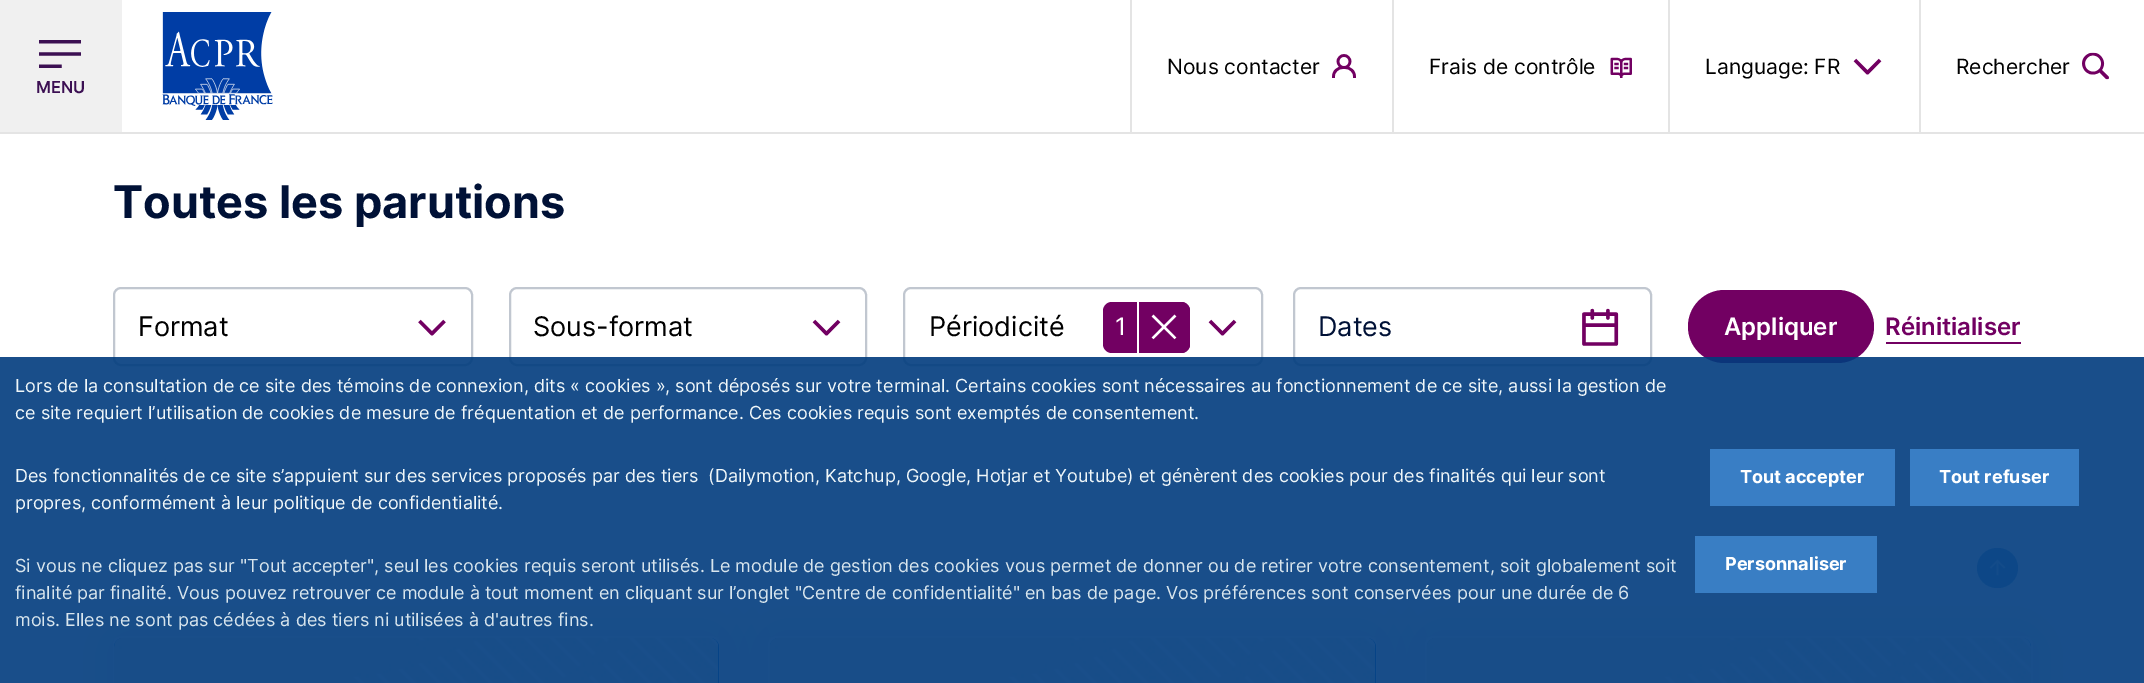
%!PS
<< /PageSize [2144 683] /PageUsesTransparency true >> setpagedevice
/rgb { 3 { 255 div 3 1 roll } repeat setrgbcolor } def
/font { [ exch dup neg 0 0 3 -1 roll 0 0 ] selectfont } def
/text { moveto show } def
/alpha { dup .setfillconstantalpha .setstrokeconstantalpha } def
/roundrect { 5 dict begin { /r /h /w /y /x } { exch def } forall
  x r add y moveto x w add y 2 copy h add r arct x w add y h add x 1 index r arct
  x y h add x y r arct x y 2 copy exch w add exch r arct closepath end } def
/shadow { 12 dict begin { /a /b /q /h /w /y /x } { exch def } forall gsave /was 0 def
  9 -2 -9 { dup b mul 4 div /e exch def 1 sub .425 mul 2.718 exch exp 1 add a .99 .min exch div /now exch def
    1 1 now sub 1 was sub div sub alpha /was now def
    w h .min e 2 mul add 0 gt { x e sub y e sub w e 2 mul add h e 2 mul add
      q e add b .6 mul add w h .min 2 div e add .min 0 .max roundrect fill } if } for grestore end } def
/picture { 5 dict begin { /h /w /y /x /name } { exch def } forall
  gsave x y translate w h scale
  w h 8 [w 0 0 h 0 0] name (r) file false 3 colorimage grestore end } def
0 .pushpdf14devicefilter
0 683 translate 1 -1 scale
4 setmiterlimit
255 255 255 rgb
0 0 2144 683 rectfill
228 228 228 rgb
0 132 2144 2 rectfill
1130 0 2 132 rectfill
(img_01.rgb) 1332 54 24 24 picture
1392 0 2 132 rectfill
(img_02.rgb) 1610 57 22 21 picture
1668 0 2 132 rectfill
(img_03.rgb) 1853 58 29 17 picture
1919 0 2 132 rectfill
(img_04.rgb) 2082 52 27 28 picture
240 240 240 rgb
0 0 122 132 rectfill
(img_05.rgb) 39 40 42 28 picture
(img_06.rgb) 162 12 111 108 picture
0 0 0 rgb
113 636 607 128 9 24 0.08 shadow
255 255 255 rgb
113 636 607 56 9 roundrect fill
gsave 114 638 605 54 9 roundrect clip newpath
<< /ShadingType 2 /ColorSpace /DeviceRGB /Coords [114 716 1314 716] /Extend [true true] /Function << /FunctionType 3 /Domain [0 1] /Functions [<< /FunctionType 2 /Domain [0 1] /C0 [0 0.439 0.82] /C1 [0 0.439 0.82] /N 1 >> << /FunctionType 2 /Domain [0 1] /C0 [0 0.439 0.82] /C1 [0 0.078 0.537] /N 1 >> << /FunctionType 2 /Domain [0 1] /C0 [0 0.078 0.537] /C1 [0 0.439 0.82] /N 1 >> << /FunctionType 2 /Domain [0 1] /C0 [0 0.439 0.82] /C1 [0 0.439 0.82] /N 1 >>] /Bounds [0.08 0.18 0.33] /Encode [0 1 0 1 0 1 0 1] >> >> shfill grestore
(img_11.rgb) 114 637 605 46 picture
0 0 0 rgb
768 636 609 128 9 24 0.08 shadow
255 255 255 rgb
768 636 609 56 9 roundrect fill
gsave 770 638 606 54 9 roundrect clip newpath
<< /ShadingType 2 /ColorSpace /DeviceRGB /Coords [770 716 1970 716] /Extend [true true] /Function << /FunctionType 3 /Domain [0 1] /Functions [<< /FunctionType 2 /Domain [0 1] /C0 [0 0.439 0.82] /C1 [0 0.439 0.82] /N 1 >> << /FunctionType 2 /Domain [0 1] /C0 [0 0.439 0.82] /C1 [0 0.078 0.537] /N 1 >> << /FunctionType 2 /Domain [0 1] /C0 [0 0.078 0.537] /C1 [0 0.439 0.82] /N 1 >> << /FunctionType 2 /Domain [0 1] /C0 [0 0.439 0.82] /C1 [0 0.439 0.82] /N 1 >>] /Bounds [0.08 0.18 0.33] /Encode [0 1 0 1 0 1 0 1] >> >> shfill grestore
(img_12.rgb) 769 637 607 46 picture
0 0 0 rgb
1425 636 608 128 9 24 0.08 shadow
255 255 255 rgb
1425 636 608 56 9 roundrect fill
(img_13.rgb) 1426 637 605 46 picture
128 184 232 rgb
1977 548 41 40 20 roundrect fill
(img_14.rgb) 1989 559 17 17 picture
/Inter-Regular 21 font
0 0 0 rgb
(Nous contacter) 1167 74 text
(Frais de contrôle) 1429 74 text
(Language: FR) 1705 74 text
(Rechercher) 1956 74 text
/Inter-SemiBold 16.5 font
60 16 83 rgb
(MENU) 36 93 text
/Inter-Bold 45 font
0 17 54 rgb
(Toutes les parutions) 113 218 text
255 255 255 rgb
145 227 moveto 1856 0 rlineto 17.5 0 32 14.5 32 32 rcurveto 0 131 rlineto -1920 0 rlineto 0 -131 rlineto 0 -17.5 14.5 -32 32 -32 rcurveto closepath fill
193 199 208 rgb
2 setlinewidth
114 288 358 77 7 roundrect stroke
/Inter-Regular 27 font
0 0 0 rgb
(Format) 138 336 text
(img_07.rgb) 418 319 28 17 picture
193 199 208 rgb
510 288 356 77 7 roundrect stroke
0 0 0 rgb
(Sous-format) 533 336 text
(img_08.rgb) 812 319 29 17 picture
193 199 208 rgb
904 288 358 77 7 roundrect stroke
0 0 0 rgb
(Périodicité) 929 336 text
114 0 98 rgb
1103 302 87 51 9 roundrect fill
/Inter-Regular 24 font
255 255 255 rgb
(1) 1115 335 text
114 0 98 rgb
1137 302 moveto 44 0 rlineto 5 0 9 4 9 9 rcurveto 0 33 rlineto 0 5 -4 9 -9 9 rcurveto -44 0 rlineto closepath fill
255 255 255 rgb
1137 302 2 51 rectfill
(img_09.rgb) 1151 314 26 26 picture
(img_08.rgb) 1208 319 29 17 picture
(img_10.rgb) 1582 308 37 38 picture
193 199 208 rgb
1294 288 357 77 7 roundrect stroke
/Inter-Regular 27 font
0 17 54 rgb
(Dates) 1318 336 text
114 0 98 rgb
1688 290 186 73 36.5 roundrect fill
/Inter-SemiBold 24 font
255 255 255 rgb
(Appliquer) 1724 335 text
114 0 98 rgb
(Réinitialiser) 1885 335 text
1886 342 135 2 rectfill
0.9 alpha
0 59 125 rgb
0 357 2144 326 rectfill
/Inter-Regular 18 font
1 alpha
240 247 249 rgb
(Lors de la consultation de ce site des témoins de connexion, dits « cookies », sont déposés sur votre terminal. Certains cookies sont nécessaires au fonctionnement de ce site, aussi la gestion de) 15 392 text
(ce site requiert l’utilisation de cookies de mesure de fréquentation et de performance. Ces cookies requis sont exemptés de consentement.) 15 419 text
(Des fonctionnalités de ce site s’appuient sur des services proposés par des tiers  \(Dailymotion, Katchup, Google, Hotjar et Youtube\) et génèrent des cookies pour des finalités qui leur sont) 15 482 text
(propres, conformément à leur politique de confidentialité.) 15 509 text
216 229 237 rgb
(Si vous ne cliquez pas sur "Tout accepter", seul les cookies requis seront utilisés. Le module de gestion des cookies vous permet de donner ou de retirer votre consentement, soit globalement soit) 15 572 text
(finalité par finalité. Vous pouvez retrouver ce module à tout moment en cliquant sur l’onglet "Centre de confidentialité" en bas de page. Vos préférences sont conservées pour une durée de 6) 15 599 text
(mois. Elles ne sont pas cédées à des tiers ni utilisées à d'autres fins.) 15 626 text
57 126 197 rgb
1710 449 185 57 rectfill
/Inter-Bold 18 font
255 255 255 rgb
(Tout accepter) 1740 483 text
57 126 197 rgb
1910 449 169 57 rectfill
255 255 255 rgb
(Tout refuser) 1939 483 text
57 126 196 rgb
1695 536 182 57 rectfill
255 255 255 rgb
(Personnaliser) 1725 570 text
.poppdf14devicefilter showpage
